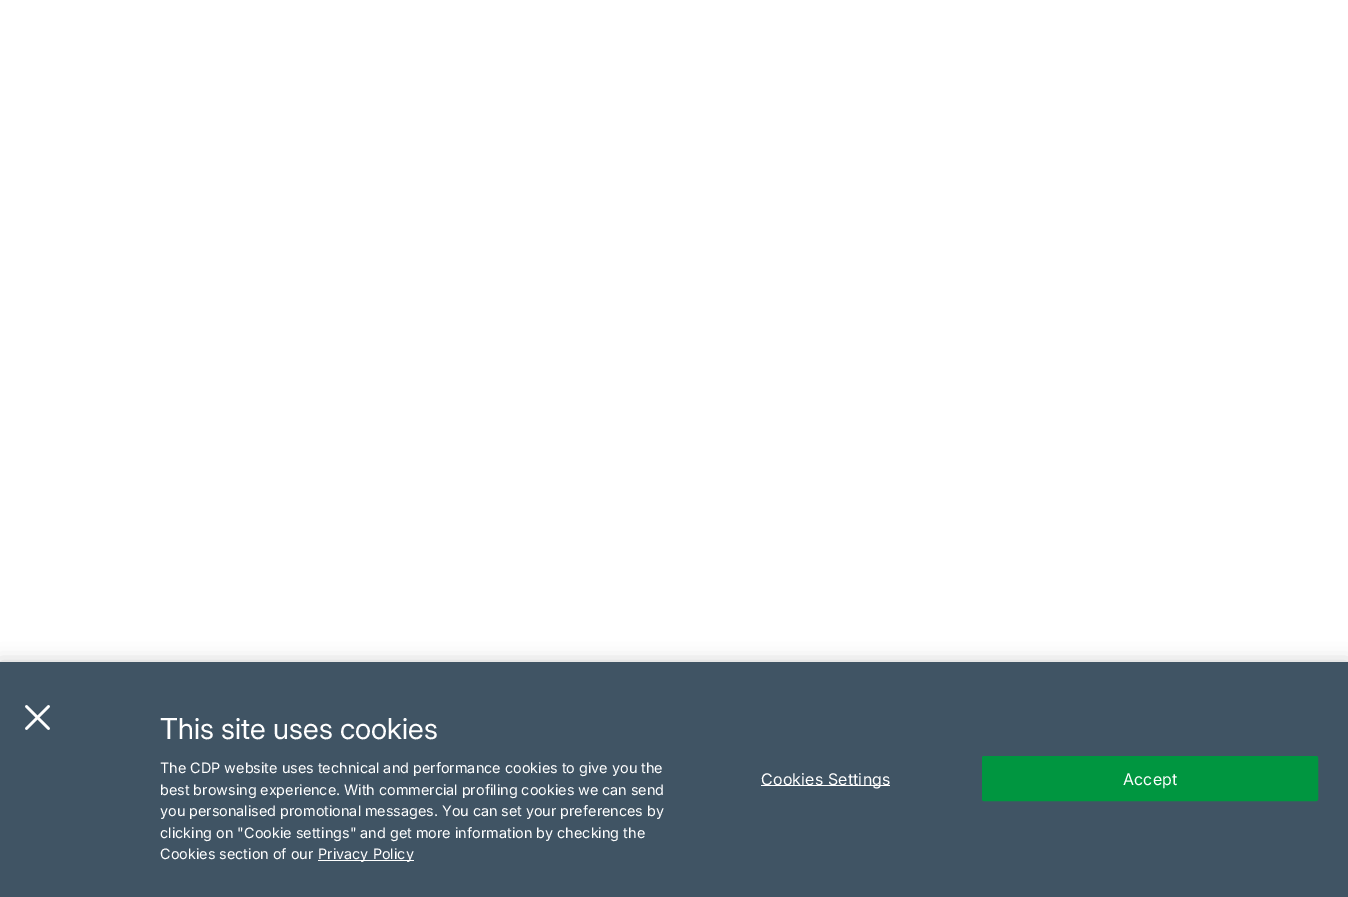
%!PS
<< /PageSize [1348 897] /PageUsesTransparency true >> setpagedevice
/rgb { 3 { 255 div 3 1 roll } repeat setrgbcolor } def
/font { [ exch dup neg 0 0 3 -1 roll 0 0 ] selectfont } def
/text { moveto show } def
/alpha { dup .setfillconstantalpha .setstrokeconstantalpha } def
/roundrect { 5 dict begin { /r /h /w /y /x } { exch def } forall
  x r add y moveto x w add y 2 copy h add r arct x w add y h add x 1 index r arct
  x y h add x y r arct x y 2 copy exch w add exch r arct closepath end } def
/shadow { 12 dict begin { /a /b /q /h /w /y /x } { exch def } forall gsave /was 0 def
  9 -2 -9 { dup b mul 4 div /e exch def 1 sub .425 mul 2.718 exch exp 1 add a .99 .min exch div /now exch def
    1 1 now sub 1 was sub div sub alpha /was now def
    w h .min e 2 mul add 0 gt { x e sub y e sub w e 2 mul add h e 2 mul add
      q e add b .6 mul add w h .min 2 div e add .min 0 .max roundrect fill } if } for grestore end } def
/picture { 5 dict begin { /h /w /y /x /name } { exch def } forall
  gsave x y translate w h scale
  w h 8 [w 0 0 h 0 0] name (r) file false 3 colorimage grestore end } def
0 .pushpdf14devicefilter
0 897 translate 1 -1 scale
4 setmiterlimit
255 255 255 rgb
0 0 1348 897 rectfill
0 0 0 rgb
0 662 1348 235 0 9 0.2 shadow
64 84 100 rgb
0 662 1348 235 rectfill
(img_01.rgb) 25 705 25 25 picture
255 255 255 rgb
318 860 96 1 rectfill
761 785 129 1 rectfill
0 150 64 rgb
982.5 756.5 335 44 1.5 roundrect gsave fill grestore
stroke
/Inter-Regular 28.75 font
255 255 255 rgb
(This site uses cookies) 160 739 text
/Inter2-Regular 14.4 font
(The CDP website uses technical and performance cookies to give you the) 160 773 text
160 795 moveto -0.25 0 32 (best browsing experience. With commercial profiling cookies we can send) widthshow
160 816 moveto -0.25 0 32 (you personalised promotional messages. You can set your preferences by) widthshow
(clicking on "Cookie settings" and get more information by checking the) 160 838 text
(Cookies section of our) 160 859 text
(Privacy Policy) 318 859 text
/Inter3-Regular 16 font
761 785 moveto 0.2 0 (Cookies Settings) ashow
1123 785 moveto 0.2 0 (Accept) ashow
.poppdf14devicefilter showpage
